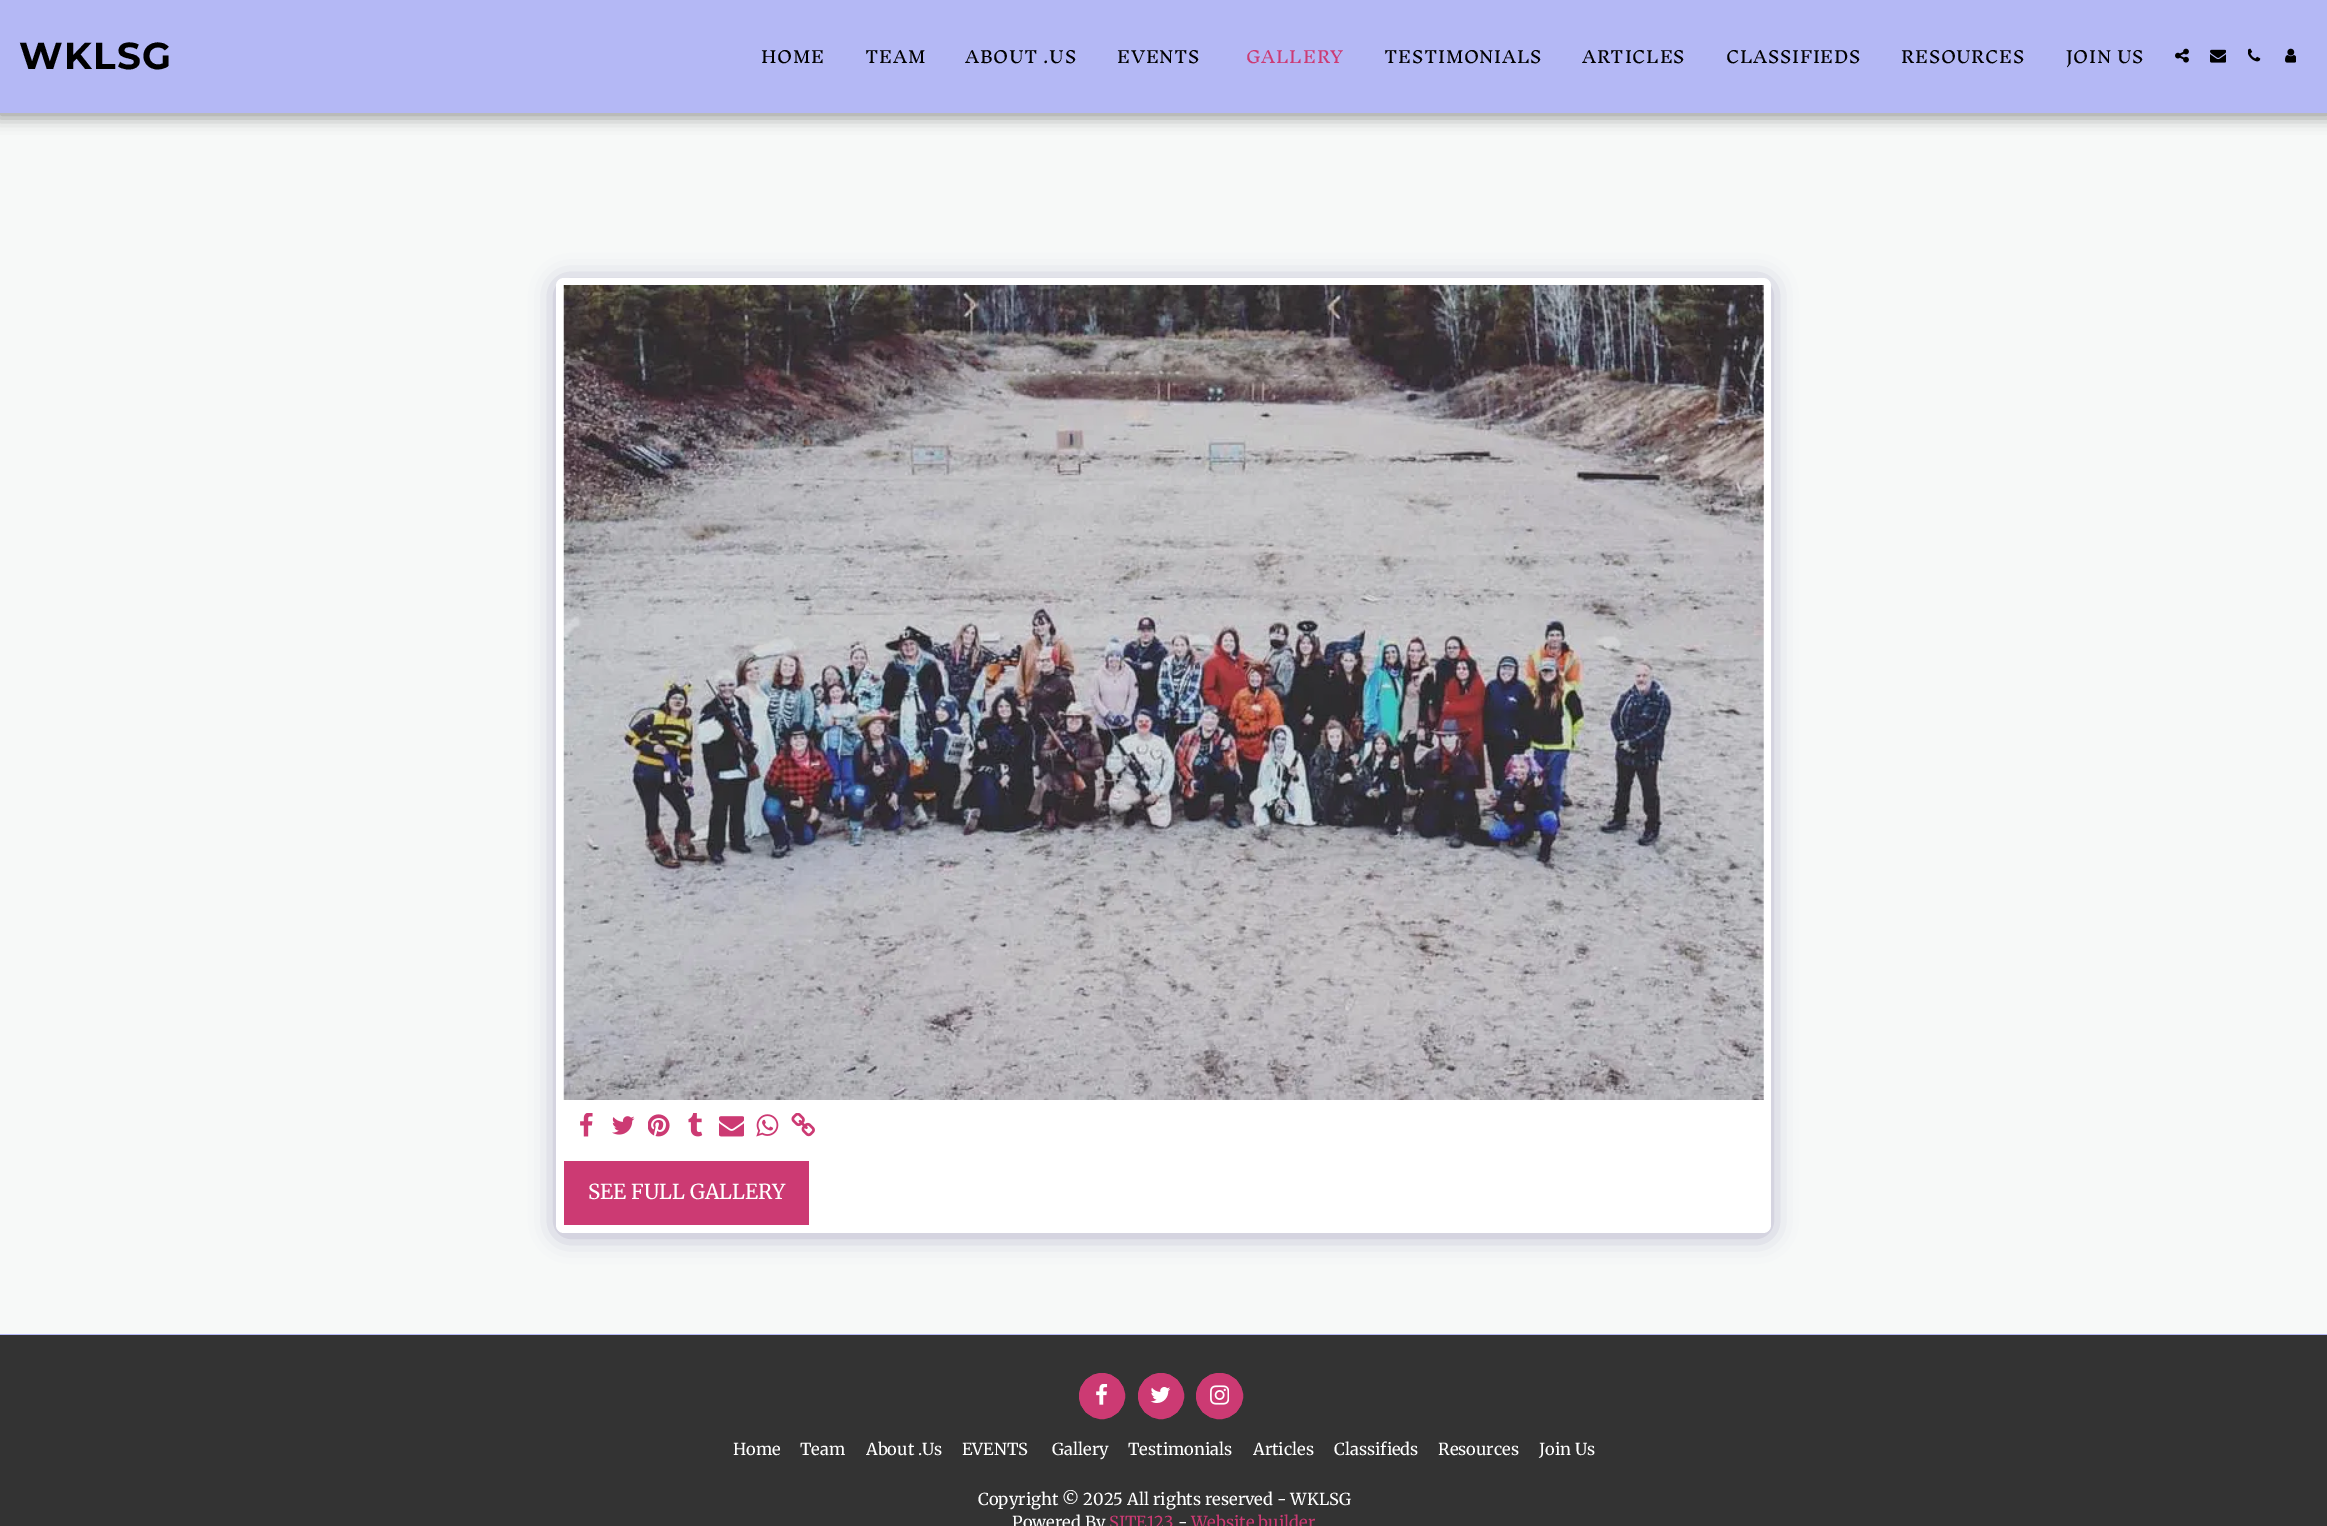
%!PS
<< /PageSize [2327 1526] /PageUsesTransparency true >> setpagedevice
/rgb { 3 { 255 div 3 1 roll } repeat setrgbcolor } def
/font { [ exch dup neg 0 0 3 -1 roll 0 0 ] selectfont } def
/text { moveto show } def
/alpha { dup .setfillconstantalpha .setstrokeconstantalpha } def
/circle { newpath 0 360 arc closepath } def
/roundrect { 5 dict begin { /r /h /w /y /x } { exch def } forall
  x r add y moveto x w add y 2 copy h add r arct x w add y h add x 1 index r arct
  x y h add x y r arct x y 2 copy exch w add exch r arct closepath end } def
/shadow { 12 dict begin { /a /b /q /h /w /y /x } { exch def } forall gsave /was 0 def
  9 -2 -9 { dup b mul 4 div /e exch def 1 sub .425 mul 2.718 exch exp 1 add a .99 .min exch div /now exch def
    1 1 now sub 1 was sub div sub alpha /was now def
    w h .min e 2 mul add 0 gt { x e sub y e sub w e 2 mul add h e 2 mul add
      q e add b .6 mul add w h .min 2 div e add .min 0 .max roundrect fill } if } for grestore end } def
/picture { 5 dict begin { /h /w /y /x /name } { exch def } forall
  gsave x y translate w h scale
  w h 8 [w 0 0 h 0 0] name (r) file false 3 colorimage grestore end } def
0 .pushpdf14devicefilter
0 1526 translate 1 -1 scale
4 setmiterlimit
247 249 248 rgb
0 0 2327 1526 rectfill
0 0 0 rgb
-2 0 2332 118 0 7.5 0.35 shadow
180 184 245 rgb
0 0 2327 113 rectfill
(img_01.rgb) 2175 48 14 15 picture
(img_02.rgb) 2210 49 16 14 picture
(img_03.rgb) 2248 48 13 14 picture
(img_04.rgb) 2285 48 11 15 picture
77 63 122 rgb
556 281 1215 955 8 12.5 0.4 shadow
255 255 255 rgb
556 278 1215 955 8 roundrect fill
(img_05.rgb) 563 285 1201 815 picture
(img_06.rgb) 580 1113 13 24 picture
(img_07.rgb) 612 1116 23 19 picture
(img_08.rgb) 648 1114 22 23 picture
(img_09.rgb) 688 1113 15 24 picture
(img_10.rgb) 719 1116 25 21 picture
(img_11.rgb) 756 1114 23 23 picture
(img_12.rgb) 791 1113 24 24 picture
204 58 115 rgb
564 1161 245 64 rectfill
180 184 245 rgb
0 1334 2327 1 rectfill
51 51 51 rgb
0 1335 2327 191 rectfill
204 58 115 rgb
1102 1396 22.5 circle gsave fill grestore
stroke
(img_13.rgb) 1096 1384 12 21 picture
1161 1396 22.5 circle gsave fill grestore
stroke
(img_14.rgb) 1150 1387 21 16 picture
1196.5 1373.5 46 45 22.5 roundrect gsave fill grestore
stroke
(img_15.rgb) 1210 1385 19 20 picture
/Montserrat-Bold 37.5 font
0 0 0 rgb
19 69 moveto 1.25 0 (WKLSG) ashow
/InknutAntiqua-Regular 16.25 font
761 63 moveto 0.6 0 (HOME) ashow
865 63 moveto 0.6 0 (TEAM) ashow
965 63 moveto 0.6 0 (ABOUT .US) ashow
1117 63 moveto 0.6 0 (EVENTS) ashow
204 58 115 rgb
1246 63 moveto 0.6 0 (GALLERY) ashow
0 0 0 rgb
1384 63 moveto 0.6 0 (TESTIMONIALS) ashow
1582 63 moveto 0.6 0 (ARTICLES) ashow
1726 63 moveto 0.6 0 (CLASSIFIEDS) ashow
1901 63 moveto 0.6 0 (RESOURCES) ashow
2066 63 moveto 0.6 0 (JOIN US) ashow
/Merriweather-Regular 20.6 font
255 255 255 rgb
(SEE FULL GALLERY) 588 1199 text
/Merriweather-Regular 16.5 font
(Home) 733 1455 text
(Team) 800 1455 text
(About .Us) 866 1455 text
(EVENTS) 962 1455 text
(Gallery) 1052 1455 text
(Testimonials) 1128 1455 text
(Articles) 1253 1455 text
(Classifieds) 1334 1455 text
(Resources) 1438 1455 text
(Join Us) 1539 1455 text
(Copyright © 2025 All rights reserved - WKLSG) 978 1505 text
(Powered By) 1012 1528 text
204 58 115 rgb
(SITE123) 1109 1528 text
255 255 255 rgb
(-) 1178 1528 text
204 58 115 rgb
(Website builder) 1191 1528 text
.poppdf14devicefilter showpage
